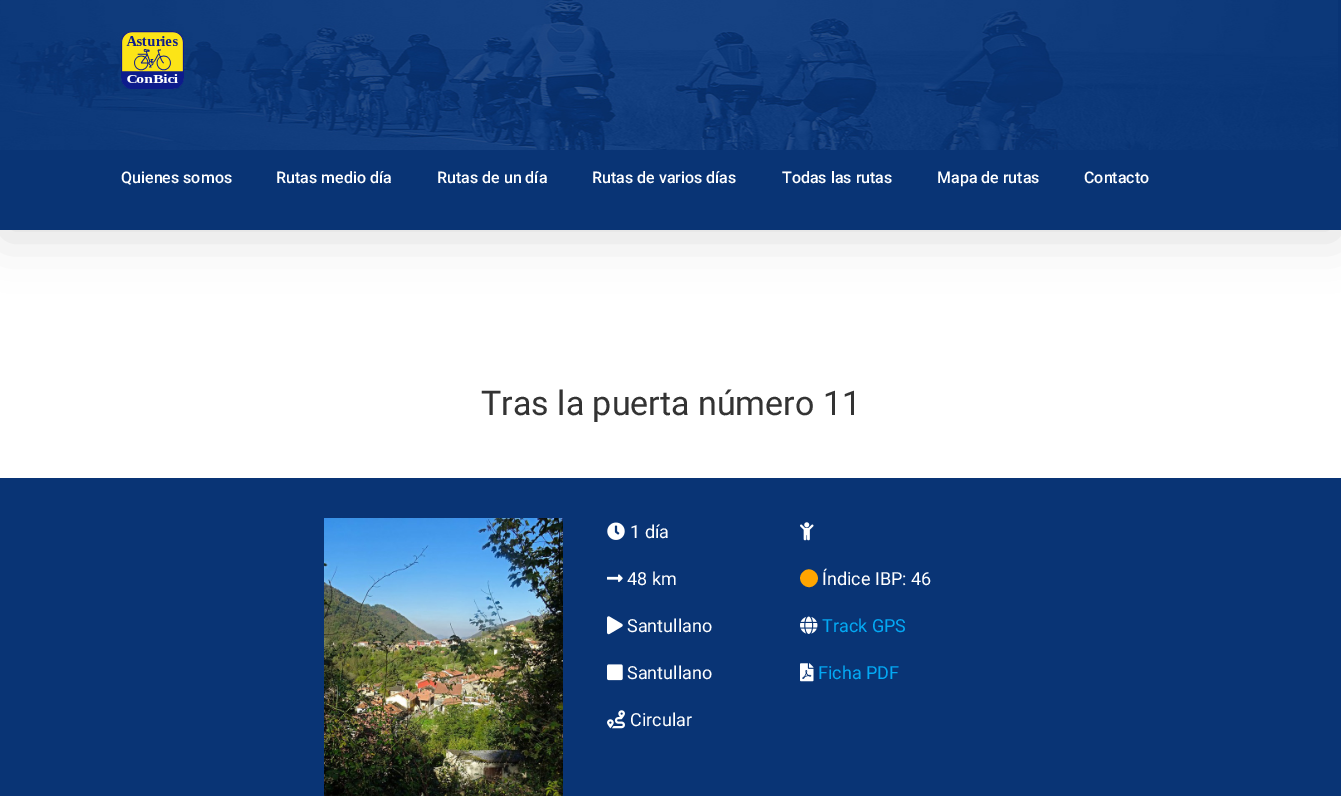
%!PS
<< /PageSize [1341 796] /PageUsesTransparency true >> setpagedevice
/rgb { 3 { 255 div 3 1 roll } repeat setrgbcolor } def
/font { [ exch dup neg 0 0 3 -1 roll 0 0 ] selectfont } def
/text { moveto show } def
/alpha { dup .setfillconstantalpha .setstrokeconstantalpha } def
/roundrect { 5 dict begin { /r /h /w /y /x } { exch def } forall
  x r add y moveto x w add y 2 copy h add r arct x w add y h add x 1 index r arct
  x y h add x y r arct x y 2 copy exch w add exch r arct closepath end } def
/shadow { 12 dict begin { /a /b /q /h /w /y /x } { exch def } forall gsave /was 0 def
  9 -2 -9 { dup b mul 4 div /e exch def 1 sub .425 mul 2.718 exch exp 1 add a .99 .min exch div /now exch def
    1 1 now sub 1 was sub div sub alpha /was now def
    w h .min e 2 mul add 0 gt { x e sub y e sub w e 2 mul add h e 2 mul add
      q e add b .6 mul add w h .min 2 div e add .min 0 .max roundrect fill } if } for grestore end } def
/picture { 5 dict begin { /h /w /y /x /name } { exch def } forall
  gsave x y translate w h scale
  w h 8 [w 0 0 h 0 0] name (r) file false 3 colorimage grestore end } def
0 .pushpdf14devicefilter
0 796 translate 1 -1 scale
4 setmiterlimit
255 255 255 rgb
0 0 1341 796 rectfill
0 0 0 rgb
2 12 1337 226 0 25 0.14 shadow
9 52 117 rgb
0 0 1341 230 rectfill
(img_01.rgb) 0 0 1338 150 picture
(img_02.rgb) 121 31 63 58 picture
0 478 1341 318 rectfill
(img_03.rgb) 324 518 239 278 picture
(img_04.rgb) 607 522 18 18 picture
(img_05.rgb) 607 574 16 9 picture
(img_06.rgb) 607 616 16 19 picture
(img_07.rgb) 607 664 16 17 picture
(img_08.rgb) 607 710 18 19 picture
(img_09.rgb) 800 522 14 19 picture
255 165 0 rgb
803 572 moveto 8 -8 20.5 4.5 12 12.5 rcurveto -8 8 -20.5 -4.5 -12 -12.5 rcurveto closepath fill
(img_10.rgb) 800 616 18 18 picture
(img_11.rgb) 800 663 14 19 picture
/Roboto-Medium 16 font
255 255 255 rgb
(Quienes somos) 121 183 text
(Rutas medio día) 276 183 text
(Rutas de un día) 437 183 text
(Rutas de varios días) 592 183 text
(Todas las rutas) 782 183 text
(Mapa de rutas) 937 183 text
(Contacto) 1084 183 text
/Roboto-Regular 34 font
51 51 51 rgb
(Tras la puerta número 11) 481 415 text
/Roboto-Regular 18 font
255 255 255 rgb
(1 día) 630 538 text
(48 km) 627 585 text
(Santullano) 627 632 text
(Santullano) 627 679 text
(Circular) 630 726 text
(Índice IBP: 46) 822 585 text
3 169 244 rgb
(Track GPS) 822 632 text
(Ficha PDF) 818 679 text
.poppdf14devicefilter showpage
